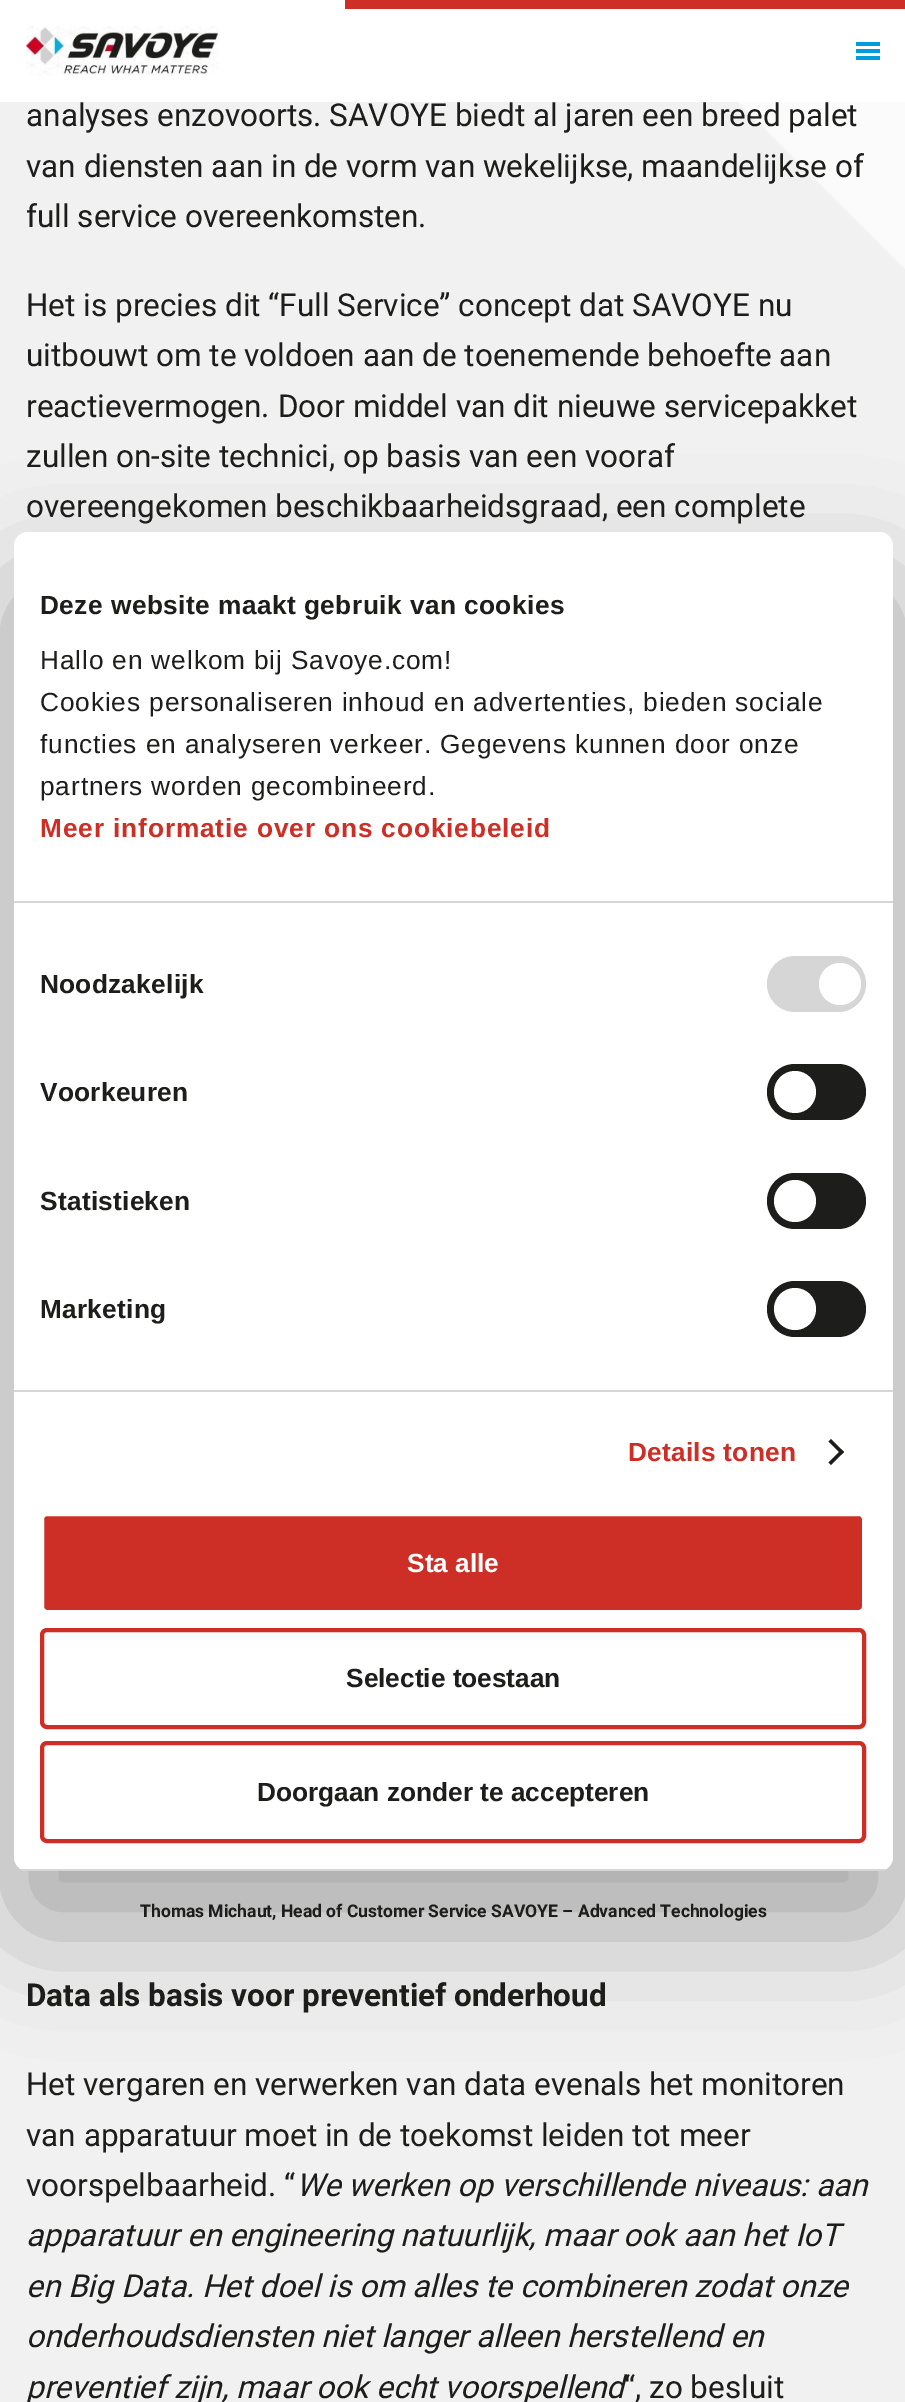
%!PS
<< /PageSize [905 2402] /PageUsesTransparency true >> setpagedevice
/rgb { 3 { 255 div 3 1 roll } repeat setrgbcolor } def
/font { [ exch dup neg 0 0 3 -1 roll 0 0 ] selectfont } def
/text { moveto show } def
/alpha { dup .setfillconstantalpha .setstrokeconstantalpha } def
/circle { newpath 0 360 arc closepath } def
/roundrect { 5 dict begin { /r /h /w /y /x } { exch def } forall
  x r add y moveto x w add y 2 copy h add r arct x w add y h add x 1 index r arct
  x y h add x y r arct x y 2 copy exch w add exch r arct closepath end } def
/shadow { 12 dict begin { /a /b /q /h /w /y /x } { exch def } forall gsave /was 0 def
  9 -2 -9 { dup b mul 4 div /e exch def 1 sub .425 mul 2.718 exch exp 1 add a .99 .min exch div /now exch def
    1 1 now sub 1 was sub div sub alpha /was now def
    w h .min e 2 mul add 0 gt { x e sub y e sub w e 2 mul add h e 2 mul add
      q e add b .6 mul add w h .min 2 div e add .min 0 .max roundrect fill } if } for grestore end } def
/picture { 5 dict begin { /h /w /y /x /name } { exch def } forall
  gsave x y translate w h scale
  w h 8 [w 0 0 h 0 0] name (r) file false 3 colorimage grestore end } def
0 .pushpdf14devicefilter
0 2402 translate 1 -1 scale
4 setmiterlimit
241 241 241 rgb
0 0 905 2402 rectfill
255 255 255 rgb
0 0 905 102 rectfill
205 46 38 rgb
345 0 560 9 rectfill
(img_01.rgb) 26 26 193 50 picture
0 156 221 rgb
856 42 24 4 rectfill
856 49 24 4 rectfill
856 56 24 4 rectfill
(img_02.rgb) 736 102 169 167 picture
0 0 0 rgb
14 588 879 1339 14 59.5 0.3 shadow
255 255 255 rgb
14 532 879 1339 14 roundrect fill
214 214 214 rgb
14 901 879 2 rectfill
14 1390 879 2 rectfill
767 956 99 56 28 roundrect fill
255 255 255 rgb
840 984 21 circle fill
29 29 27 rgb
767 1064 99 56 28 roundrect fill
255 255 255 rgb
795 1092 21 circle fill
29 29 27 rgb
767 1173 99 56 28 roundrect fill
255 255 255 rgb
795 1201 21 circle fill
29 29 27 rgb
767 1281 99 56 28 roundrect fill
255 255 255 rgb
795 1309 21 circle fill
29 29 27 rgb
831 1439 moveto 13 13 rlineto -2.5 2.5 rlineto -13 -13 rlineto closepath fill
841.5 1449.5 moveto 2.5 2.5 rlineto -13 13 rlineto -2.5 -2.5 rlineto closepath fill
gsave
14 532 879 1339 14 roundrect clip newpath
214 214 214 rgb
14 1869 879 2 rectfill
grestore
205 46 38 rgb
42 1514 822 98 5 roundrect gsave fill grestore
255 255 255 rgb
4 setlinewidth
stroke
205 46 38 rgb
42 1630 822 97 5 roundrect stroke
42 1743 822 98 5 roundrect stroke
/Roboto-Regular 31.5 font
29 29 27 rgb
(analyses enzovoorts. SAVOYE biedt al jaren een breed palet) 26 126 text
(van diensten aan in de vorm van wekelijkse, maandelijkse of) 26 177 text
(full service overeenkomsten.) 26 227 text
(Het is precies dit “Full Service” concept dat SAVOYE nu) 26 316 text
(uitbouwt om te voldoen aan de toenemende behoefte aan) 26 366 text
(reactievermogen. Door middel van dit nieuwe servicepakket) 26 417 text
(zullen on-site technici, op basis van een vooraf) 26 467 text
(overeengekomen beschikbaarheidsgraad, een complete) 26 517 text
/Roboto-Bold 17.5 font
(Thomas Michaut, Head of Customer Service SAVOYE – Advanced Technologies) 140 1917 text
/Roboto-Bold 31.5 font
(Data als basis voor preventief onderhoud) 26 2006 text
/Roboto-Regular 31.5 font
(Het vergaren en verwerken van data evenals het monitoren) 26 2095 text
(van apparatuur moet in de toekomst leiden tot meer) 26 2146 text
(voorspelbaarheid. “) 26 2196 text
/Roboto-Italic 31.5 font
(We werken op verschillende niveaus: aan) 296 2196 text
(apparatuur en engineering natuurlijk, maar ook aan het IoT) 26 2246 text
(en Big Data. Het doel is om alles te combineren zodat onze) 26 2297 text
(onderhoudsdiensten niet langer alleen herstellend en) 26 2347 text
(preventief zijn, maar ook echt voorspellend) 26 2398 text
/Roboto-Regular 31.5 font
(“, zo besluit) 624 2398 text
/LiberationSans-Bold 26.25 font
40 614 moveto 0.45 0 (Deze website maakt gebruik van cookies) ashow
/LiberationSans-Regular 26.25 font
40 669 moveto 0.88 0 (Hallo en welkom bij Savoye.com!) ashow
40 711 moveto 0.88 0 (Cookies personaliseren inhoud en advertenties, bieden sociale) ashow
40 753 moveto 0.88 0 (functies en analyseren verkeer. Gegevens kunnen door onze) ashow
40 795 moveto 0.88 0 (partners worden gecombineerd.) ashow
/LiberationSans-Bold 26.25 font
205 46 38 rgb
40 837 moveto 0.88 0 (Meer informatie over ons cookiebeleid) ashow
29 29 27 rgb
40 993 moveto 0.25 0 (Noodzakelijk) ashow
40 1101 moveto 0.25 0 (Voorkeuren) ashow
40 1210 moveto 0.25 0 (Statistieken) ashow
40 1318 moveto 0.25 0 (Marketing) ashow
205 46 38 rgb
628 1461 moveto 0.25 0 (Details tonen) ashow
255 255 255 rgb
(Sta alle) 407 1572 text
29 29 27 rgb
(Selectie toestaan) 346 1687 text
(Doorgaan zonder te accepteren) 257 1801 text
.poppdf14devicefilter showpage
